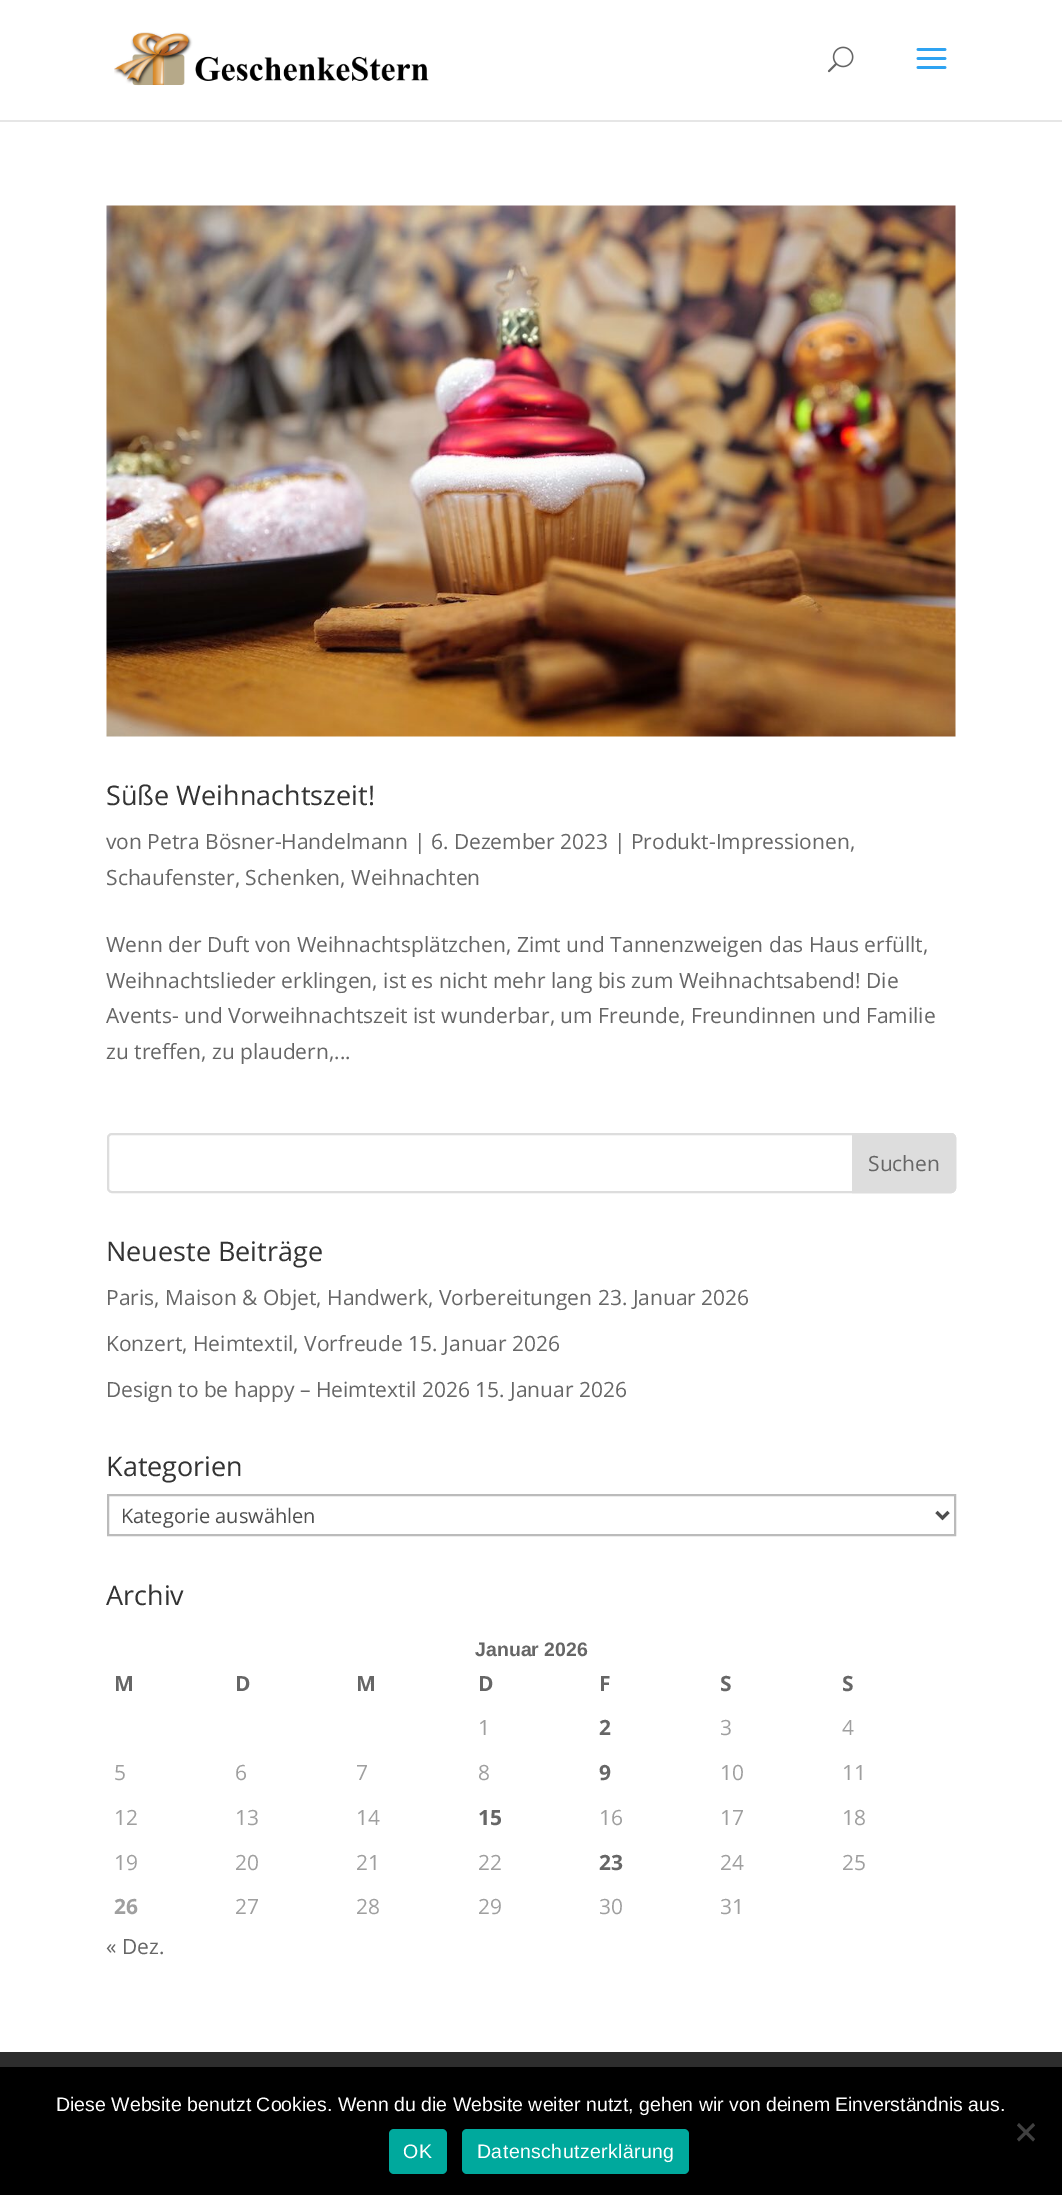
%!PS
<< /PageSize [1062 2195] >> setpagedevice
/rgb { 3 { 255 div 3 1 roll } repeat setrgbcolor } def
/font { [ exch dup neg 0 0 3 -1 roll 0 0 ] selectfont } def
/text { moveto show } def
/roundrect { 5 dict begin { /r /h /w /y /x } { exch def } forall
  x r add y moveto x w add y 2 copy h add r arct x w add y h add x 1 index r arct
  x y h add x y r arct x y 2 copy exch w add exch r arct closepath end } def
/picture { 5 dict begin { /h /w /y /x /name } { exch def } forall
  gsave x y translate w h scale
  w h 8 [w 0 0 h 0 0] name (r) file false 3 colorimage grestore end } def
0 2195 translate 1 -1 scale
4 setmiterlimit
255 255 255 rgb
0 0 1062 2195 rectfill
230 230 230 rgb
0 120 1062 2 rectfill
(img_01.rgb) 114 32 315 54 picture
(img_02.rgb) 827 46 27 27 picture
(img_03.rgb) 916 48 31 21 picture
(img_04.rgb) 106 205 850 532 picture
221 221 221 rgb
2 setlinewidth
108 1134 847 58 4 roundrect stroke
853 1134 moveto 98 0 rlineto 2 0 4 2 4 4 rcurveto 0 50 rlineto 0 2 -2 4 -4 4 rcurveto -98 0 rlineto closepath gsave fill grestore
stroke
187 187 187 rgb
108 1495 847 40 rectstroke
78 78 78 rgb
3 setlinewidth
936.5 1512 moveto 6 6 rlineto 6 -6 rlineto stroke
45 45 45 rgb
0 2052 1062 15 rectfill
0 0 0 rgb
0 2067 1062 128 rectfill
64 64 64 rgb
1033 2123 moveto 2 2.5 rlineto -16 16 rlineto -2 -2.5 rlineto closepath fill
1017 2125.5 moveto 2 -2.5 rlineto 16 16 rlineto -2 2.5 rlineto closepath fill
0 169 157 rgb
389 2129 58 45 5 roundrect fill
462 2129 227 45 5 roundrect fill
/OpenSans-Regular 27 font
51 51 51 rgb
(Süße Weihnachtszeit!) 106 805 text
/OpenSans-Regular 21 font
102 102 102 rgb
(von Petra Bösner-Handelmann | 6. Dezember 2023 | Produkt-Impressionen,) 106 849 text
(Schaufenster, Schenken, Weihnachten) 106 885 text
(Wenn der Duft von Weihnachtsplätzchen, Zimt und Tannenzweigen das Haus erfüllt,) 106 952 text
(Weihnachtslieder erklingen, ist es nicht mehr lang bis zum Weihnachtsabend! Die) 106 988 text
(Avents- und Vorweihnachtszeit ist wunderbar, um Freunde, Freundinnen und Familie) 106 1023 text
(zu treffen, zu plaudern,...) 106 1059 text
(Suchen) 868 1171 text
/OpenSans-Regular 27 font
51 51 51 rgb
(Neueste Beiträge) 106 1261 text
/OpenSans-Regular 21 font
102 102 102 rgb
(Paris, Maison & Objet, Handwerk, Vorbereitungen 23. Januar 2026) 106 1305 text
(Konzert, Heimtextil, Vorfreude 15. Januar 2026) 106 1351 text
(Design to be happy – Heimtextil 2026 15. Januar 2026) 106 1397 text
/OpenSans-Regular 27 font
51 51 51 rgb
(Kategorien) 106 1476 text
/OpenSans-Regular 20 font
78 78 78 rgb
(Kategorie auswählen) 121 1523 text
/OpenSans-Regular 27 font
51 51 51 rgb
(Archiv) 106 1605 text
/LiberationSans-Bold 19.5 font
102 102 102 rgb
(Januar 2026) 475 1656 text
/OpenSans-Bold 21 font
(M) 114 1691 text
(D) 235 1691 text
(M) 356 1691 text
(D) 478 1691 text
(F) 599 1691 text
(S) 720 1691 text
(S) 842 1691 text
/OpenSans-Regular 21 font
159 159 159 rgb
(1) 478 1735 text
/OpenSans-Bold 21 font
102 102 102 rgb
(2) 599 1735 text
/OpenSans-Regular 21 font
159 159 159 rgb
(3) 720 1735 text
(4) 842 1735 text
(5) 114 1780 text
(6) 235 1780 text
(7) 356 1780 text
(8) 478 1780 text
/OpenSans-Bold 21 font
102 102 102 rgb
(9) 599 1780 text
/OpenSans-Regular 21 font
159 159 159 rgb
(10) 720 1780 text
(11) 842 1780 text
(12) 114 1825 text
(13) 235 1825 text
(14) 356 1825 text
/OpenSans-Bold 21 font
102 102 102 rgb
(15) 478 1825 text
/OpenSans-Regular 21 font
159 159 159 rgb
(16) 599 1825 text
(17) 720 1825 text
(18) 842 1825 text
(19) 114 1870 text
(20) 235 1870 text
(21) 356 1870 text
(22) 478 1870 text
/OpenSans-Bold 21 font
102 102 102 rgb
(23) 599 1870 text
/OpenSans-Regular 21 font
159 159 159 rgb
(24) 720 1870 text
(25) 842 1870 text
/OpenSans-Bold 21 font
(26) 114 1914 text
/OpenSans-Regular 21 font
(27) 235 1914 text
(28) 356 1914 text
(29) 478 1914 text
(30) 599 1914 text
(31) 720 1914 text
102 102 102 rgb
(« Dez.) 106 1954 text
/LiberationSans-Regular 19.5 font
255 255 255 rgb
(Diese Website benutzt Cookies. Wenn du die Website weiter nutzt, gehen wir von deinem Einverständnis aus.) 56 2111 text
403 2158 moveto 0.4 0 (OK) ashow
477 2158 moveto 0.4 0 (Datenschutzerklärung) ashow
showpage
